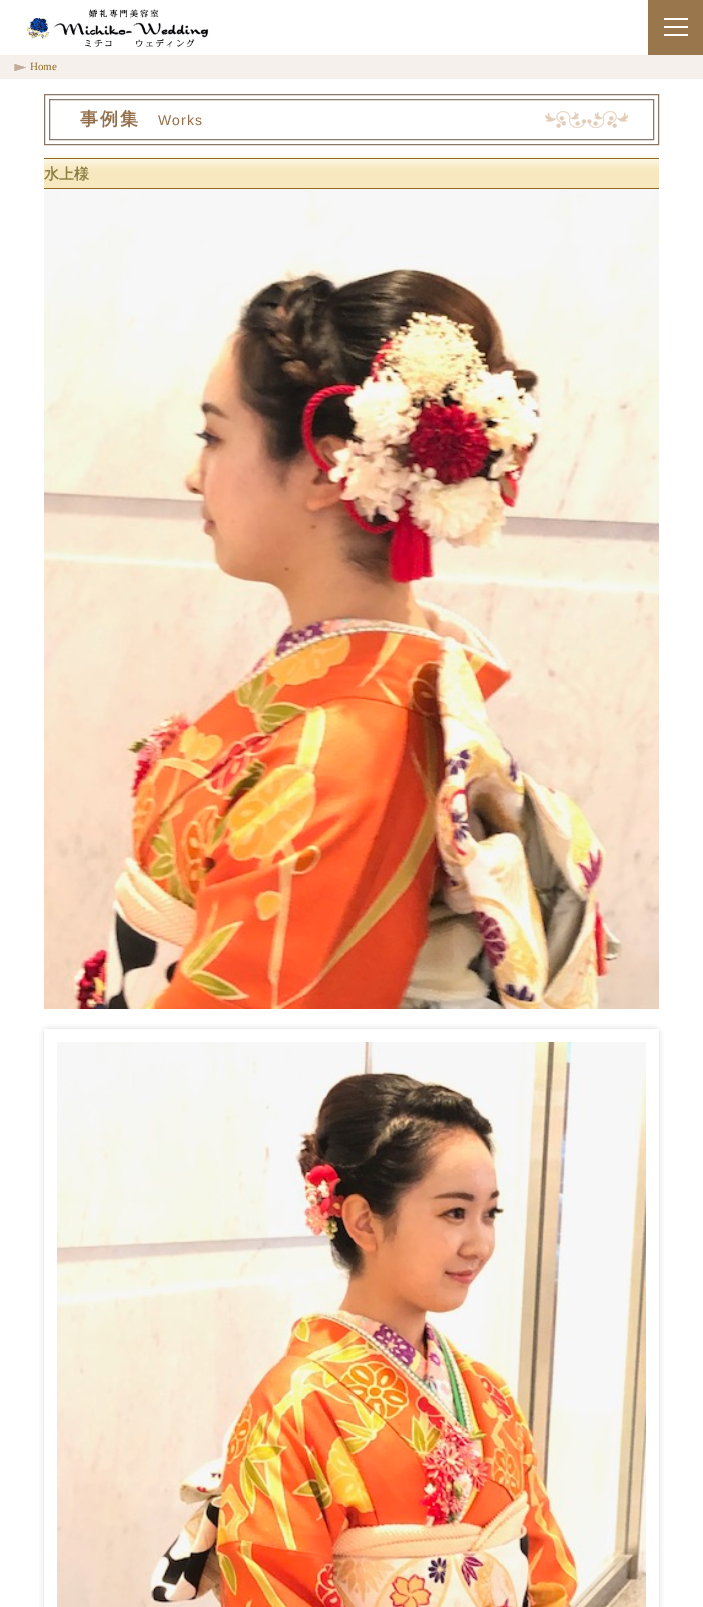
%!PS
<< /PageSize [703 1607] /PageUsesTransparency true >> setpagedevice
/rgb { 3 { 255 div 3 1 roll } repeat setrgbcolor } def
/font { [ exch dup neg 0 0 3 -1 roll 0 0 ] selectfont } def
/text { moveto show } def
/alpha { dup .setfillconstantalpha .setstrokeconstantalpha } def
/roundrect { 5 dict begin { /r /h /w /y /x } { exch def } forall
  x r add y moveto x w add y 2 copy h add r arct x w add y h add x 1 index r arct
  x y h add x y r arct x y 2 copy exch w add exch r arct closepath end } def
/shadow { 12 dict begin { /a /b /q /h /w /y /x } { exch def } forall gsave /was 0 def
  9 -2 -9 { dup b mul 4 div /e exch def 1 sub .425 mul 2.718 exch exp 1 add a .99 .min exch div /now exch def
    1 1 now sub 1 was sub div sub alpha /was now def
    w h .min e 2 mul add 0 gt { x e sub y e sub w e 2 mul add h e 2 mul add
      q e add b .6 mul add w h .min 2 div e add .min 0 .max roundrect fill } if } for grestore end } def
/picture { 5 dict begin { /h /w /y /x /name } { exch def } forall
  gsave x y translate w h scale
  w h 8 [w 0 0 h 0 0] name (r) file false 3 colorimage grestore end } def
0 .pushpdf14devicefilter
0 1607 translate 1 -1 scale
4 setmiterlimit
255 255 255 rgb
0 0 703 1607 rectfill
(img_01.rgb) 25 9 184 39 picture
154 118 76 rgb
648 0 55 55 rectfill
255 255 255 rgb
664 26 24 2 rectfill
664 18 24 2 rectfill
664 34 24 2 rectfill
245 240 235 rgb
0 55 703 24 rectfill
(img_02.rgb) 14 63 12 9 picture
138 121 105 rgb
44.5 94.5 614 50 rectstroke
49.5 99.5 604 40 rectstroke
(img_03.rgb) 545 111 83 17 picture
(img_04.rgb) 44 155 615 34 picture
(img_05.rgb) 44 189 615 820 picture
gsave
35 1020 moveto 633 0 rlineto 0 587 rlineto -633 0 rlineto closepath 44 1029 moveto 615 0 rlineto 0 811 rlineto -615 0 rlineto closepath eoclip newpath
119 119 119 rgb
48 1033 607 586 0 4 1 shadow
grestore
(img_06.rgb) 57 1042 589 565 picture
/LiberationSerif-Regular 11 font
146 104 35 rgb
(Home) 30 70 text
/WenQuanYiZenHei-Bold 18 font
147 111 75 rgb
80 125 moveto 2 0 (事例集) ashow
/LiberationSans-Regular 14 font
158 125 moveto 1 0 (Works) ashow
/WenQuanYiZenHei-Bold 15 font
140 127 65 rgb
(水上様) 44 179 text
.poppdf14devicefilter showpage
